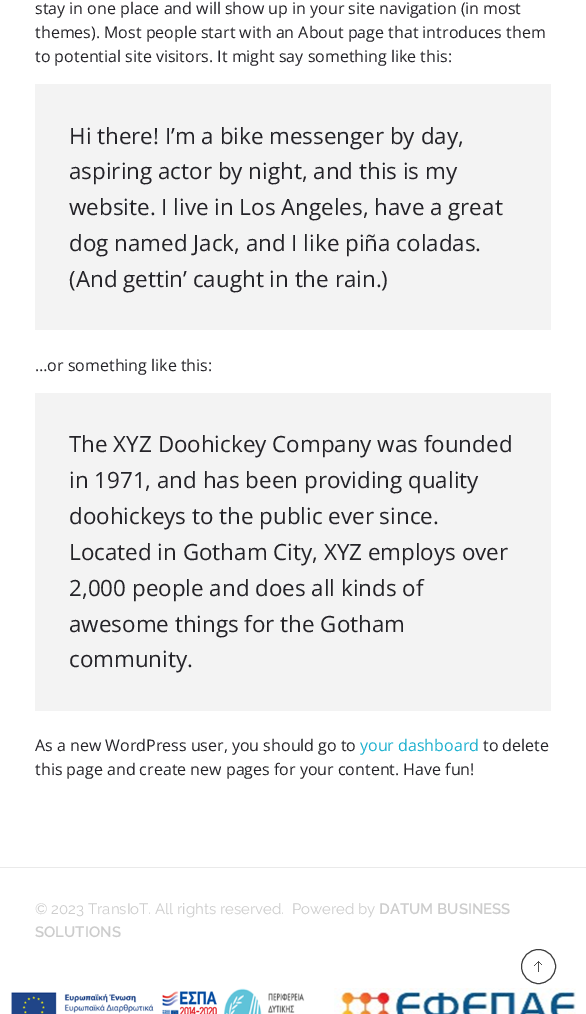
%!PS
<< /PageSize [586 1014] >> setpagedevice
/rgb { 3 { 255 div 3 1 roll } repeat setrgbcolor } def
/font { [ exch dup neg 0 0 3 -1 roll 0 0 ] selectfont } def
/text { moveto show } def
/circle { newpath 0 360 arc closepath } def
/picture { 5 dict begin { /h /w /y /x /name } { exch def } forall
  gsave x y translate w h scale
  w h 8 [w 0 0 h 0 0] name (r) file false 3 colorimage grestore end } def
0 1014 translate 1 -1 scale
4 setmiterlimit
255 255 255 rgb
0 0 586 1014 rectfill
243 243 243 rgb
35 84 516 246 rectfill
35 393 516 318 rectfill
234 234 234 rgb
0 867 586 1 rectfill
(img_01.rgb) 11 988 565 26 picture
61 61 61 rgb
538.5 966.5 17 circle stroke
(img_02.rgb) 534 961 8 11 picture
/OpenSans-Regular 16 font
36 35 40 rgb
(stay in one place and will show up in your site navigation \(in most) 35 14 text
(themes\). Most people start with an About page that introduces them) 35 38 text
(to potential site visitors. It might say something like this:) 35 62 text
/OpenSans-Regular 22.4 font
(Hi there! I’m a bike messenger by day,) 69 144 text
(aspiring actor by night, and this is my) 69 179 text
(website. I live in Los Angeles, have a great) 69 215 text
(dog named Jack, and I like piña coladas.) 69 251 text
(\(And gettin’ caught in the rain.\)) 69 287 text
/OpenSans-Regular 16 font
(…or something like this:) 35 371 text
/OpenSans-Regular 22.4 font
(The XYZ Doohickey Company was founded) 69 452 text
(in 1971, and has been providing quality) 69 488 text
(doohickeys to the public ever since.) 69 524 text
(Located in Gotham City, XYZ employs over) 69 560 text
(2,000 people and does all kinds of) 69 596 text
(awesome things for the Gotham) 69 632 text
(community.) 69 667 text
/OpenSans-Regular 16 font
(As a new WordPress user, you should go to) 35 751 text
27 176 206 rgb
(your dashboard) 360 751 text
36 35 40 rgb
(to delete) 483 751 text
(this page and create new pages for your content. Have fun!) 35 775 text
/Raleway-Regular 15 font
204 204 204 rgb
(© 2023 TransIoT. All rights reserved.  Powered by) 35 914 text
/Raleway-SemiBold 15 font
(DATUM BUSINESS) 379 914 text
(SOLUTIONS) 35 937 text
showpage
